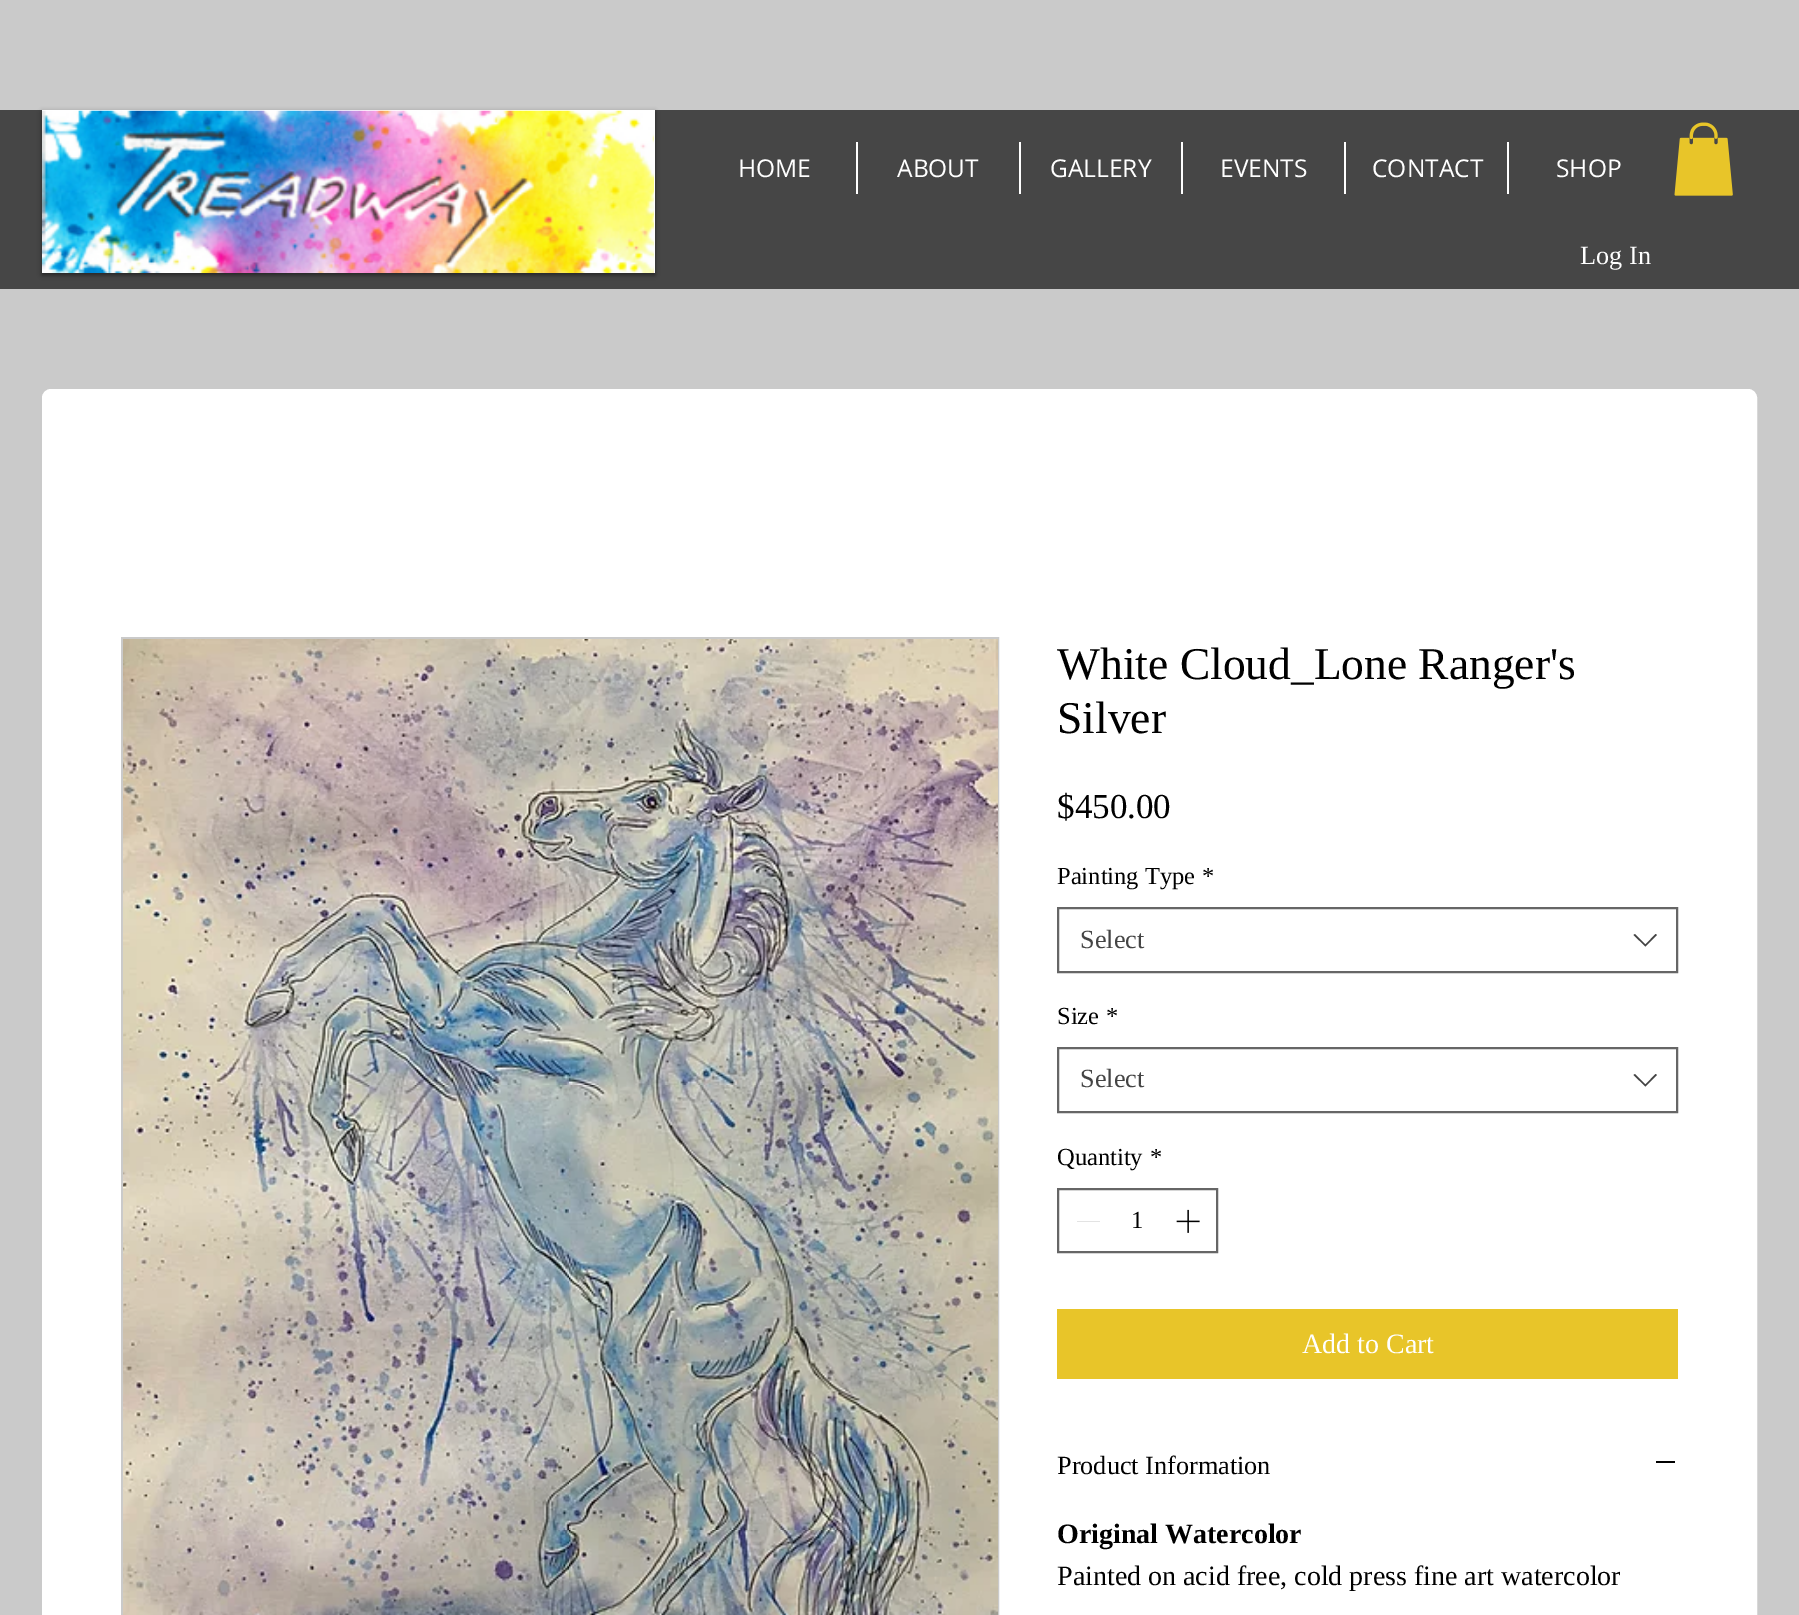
%!PS
<< /PageSize [1799 1615] /PageUsesTransparency true >> setpagedevice
/rgb { 3 { 255 div 3 1 roll } repeat setrgbcolor } def
/font { [ exch dup neg 0 0 3 -1 roll 0 0 ] selectfont } def
/text { moveto show } def
/alpha { dup .setfillconstantalpha .setstrokeconstantalpha } def
/roundrect { 5 dict begin { /r /h /w /y /x } { exch def } forall
  x r add y moveto x w add y 2 copy h add r arct x w add y h add x 1 index r arct
  x y h add x y r arct x y 2 copy exch w add exch r arct closepath end } def
/shadow { 12 dict begin { /a /b /q /h /w /y /x } { exch def } forall gsave /was 0 def
  9 -2 -9 { dup b mul 4 div /e exch def 1 sub .425 mul 2.718 exch exp 1 add a .99 .min exch div /now exch def
    1 1 now sub 1 was sub div sub alpha /was now def
    w h .min e 2 mul add 0 gt { x e sub y e sub w e 2 mul add h e 2 mul add
      q e add b .6 mul add w h .min 2 div e add .min 0 .max roundrect fill } if } for grestore end } def
/picture { 5 dict begin { /h /w /y /x /name } { exch def } forall
  gsave x y translate w h scale
  w h 8 [w 0 0 h 0 0] name (r) file false 3 colorimage grestore end } def
0 .pushpdf14devicefilter
0 1615 translate 1 -1 scale
4 setmiterlimit
202 202 202 rgb
0 0 1799 1615 rectfill
70 70 70 rgb
0 110 1799 179 rectfill
0 0 0 rgb
42 112 613 163 0 2.5 0.5 shadow
255 255 255 rgb
42 110 613 163 rectfill
(img_01.rgb) 42 110 613 163 picture
856 142 2 52 rectfill
1019 142 2 52 rectfill
1181 142 2 52 rectfill
1344 142 2 52 rectfill
1507 142 2 52 rectfill
(img_02.rgb) 1674 122 59 74 picture
43 390 1713 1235 8 roundrect gsave fill grestore
2 setlinewidth
stroke
202 202 202 rgb
122 638 876 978 rectstroke
(img_03.rgb) 123 639 875 976 picture
102 102 102 rgb
1058 908 619 64 rectstroke
68 68 68 rgb
1655.5 934 moveto 1.5 1 rlineto -11.5 11.5 rlineto -12 -11.5 rlineto 1.5 -1 rlineto 10.5 10.5 rlineto closepath eofill
102 102 102 rgb
1058 1048 619 64 rectstroke
68 68 68 rgb
1655.5 1074 moveto 1.5 1 rlineto -11.5 11.5 rlineto -12 -11.5 rlineto 1.5 -1 rlineto 10.5 10.5 rlineto closepath eofill
102 102 102 rgb
1058 1189 159 63 rectstroke
227 227 227 rgb
1077 1221 23 1 rectfill
(img_04.rgb) 1176 1209 24 24 picture
232 197 41 rgb
1057 1309 621 70 rectfill
0 0 0 rgb
1656 1461 19 2 rectfill
/OpenSans-Regular 24.5 font
255 255 255 rgb
(HOME) 738 177 text
(ABOUT) 897 177 text
(GALLERY) 1050 177 text
(EVENTS) 1220 177 text
(CONTACT) 1372 177 text
(SHOP) 1556 177 text
/LiberationSerif-Regular 26.25 font
(Log In) 1580 264 text
/LiberationSerif-Regular 45.5 font
0 0 0 rgb
(White Cloud_Lone Ranger's) 1057 679 text
(Silver) 1057 733 text
/LiberationSerif-Regular 35 font
($450.00) 1057 818 text
/LiberationSerif-Regular 24.5 font
(Painting Type) 1057 884 text
(*) 1202 884 text
/LiberationSerif-Regular 26.25 font
68 68 68 rgb
(Select) 1080 948 text
/LiberationSerif-Regular 24.5 font
0 0 0 rgb
(Size) 1057 1024 text
(*) 1106 1024 text
/LiberationSerif-Regular 26.25 font
68 68 68 rgb
(Select) 1080 1087 text
/LiberationSerif-Regular 24.5 font
0 0 0 rgb
(Quantity) 1057 1165 text
(*) 1150 1165 text
(1) 1131 1228 text
/LiberationSerif-Regular 28 font
255 255 255 rgb
(Add to Cart) 1302 1353 text
/LiberationSerif-Regular 26.25 font
0 0 0 rgb
(Product Information) 1057 1474 text
/LiberationSerif-Bold 28 font
(Original Watercolor) 1057 1543 text
/LiberationSerif-Regular 28 font
(Painted on acid free, cold press fine art watercolor) 1057 1585 text
.poppdf14devicefilter showpage
